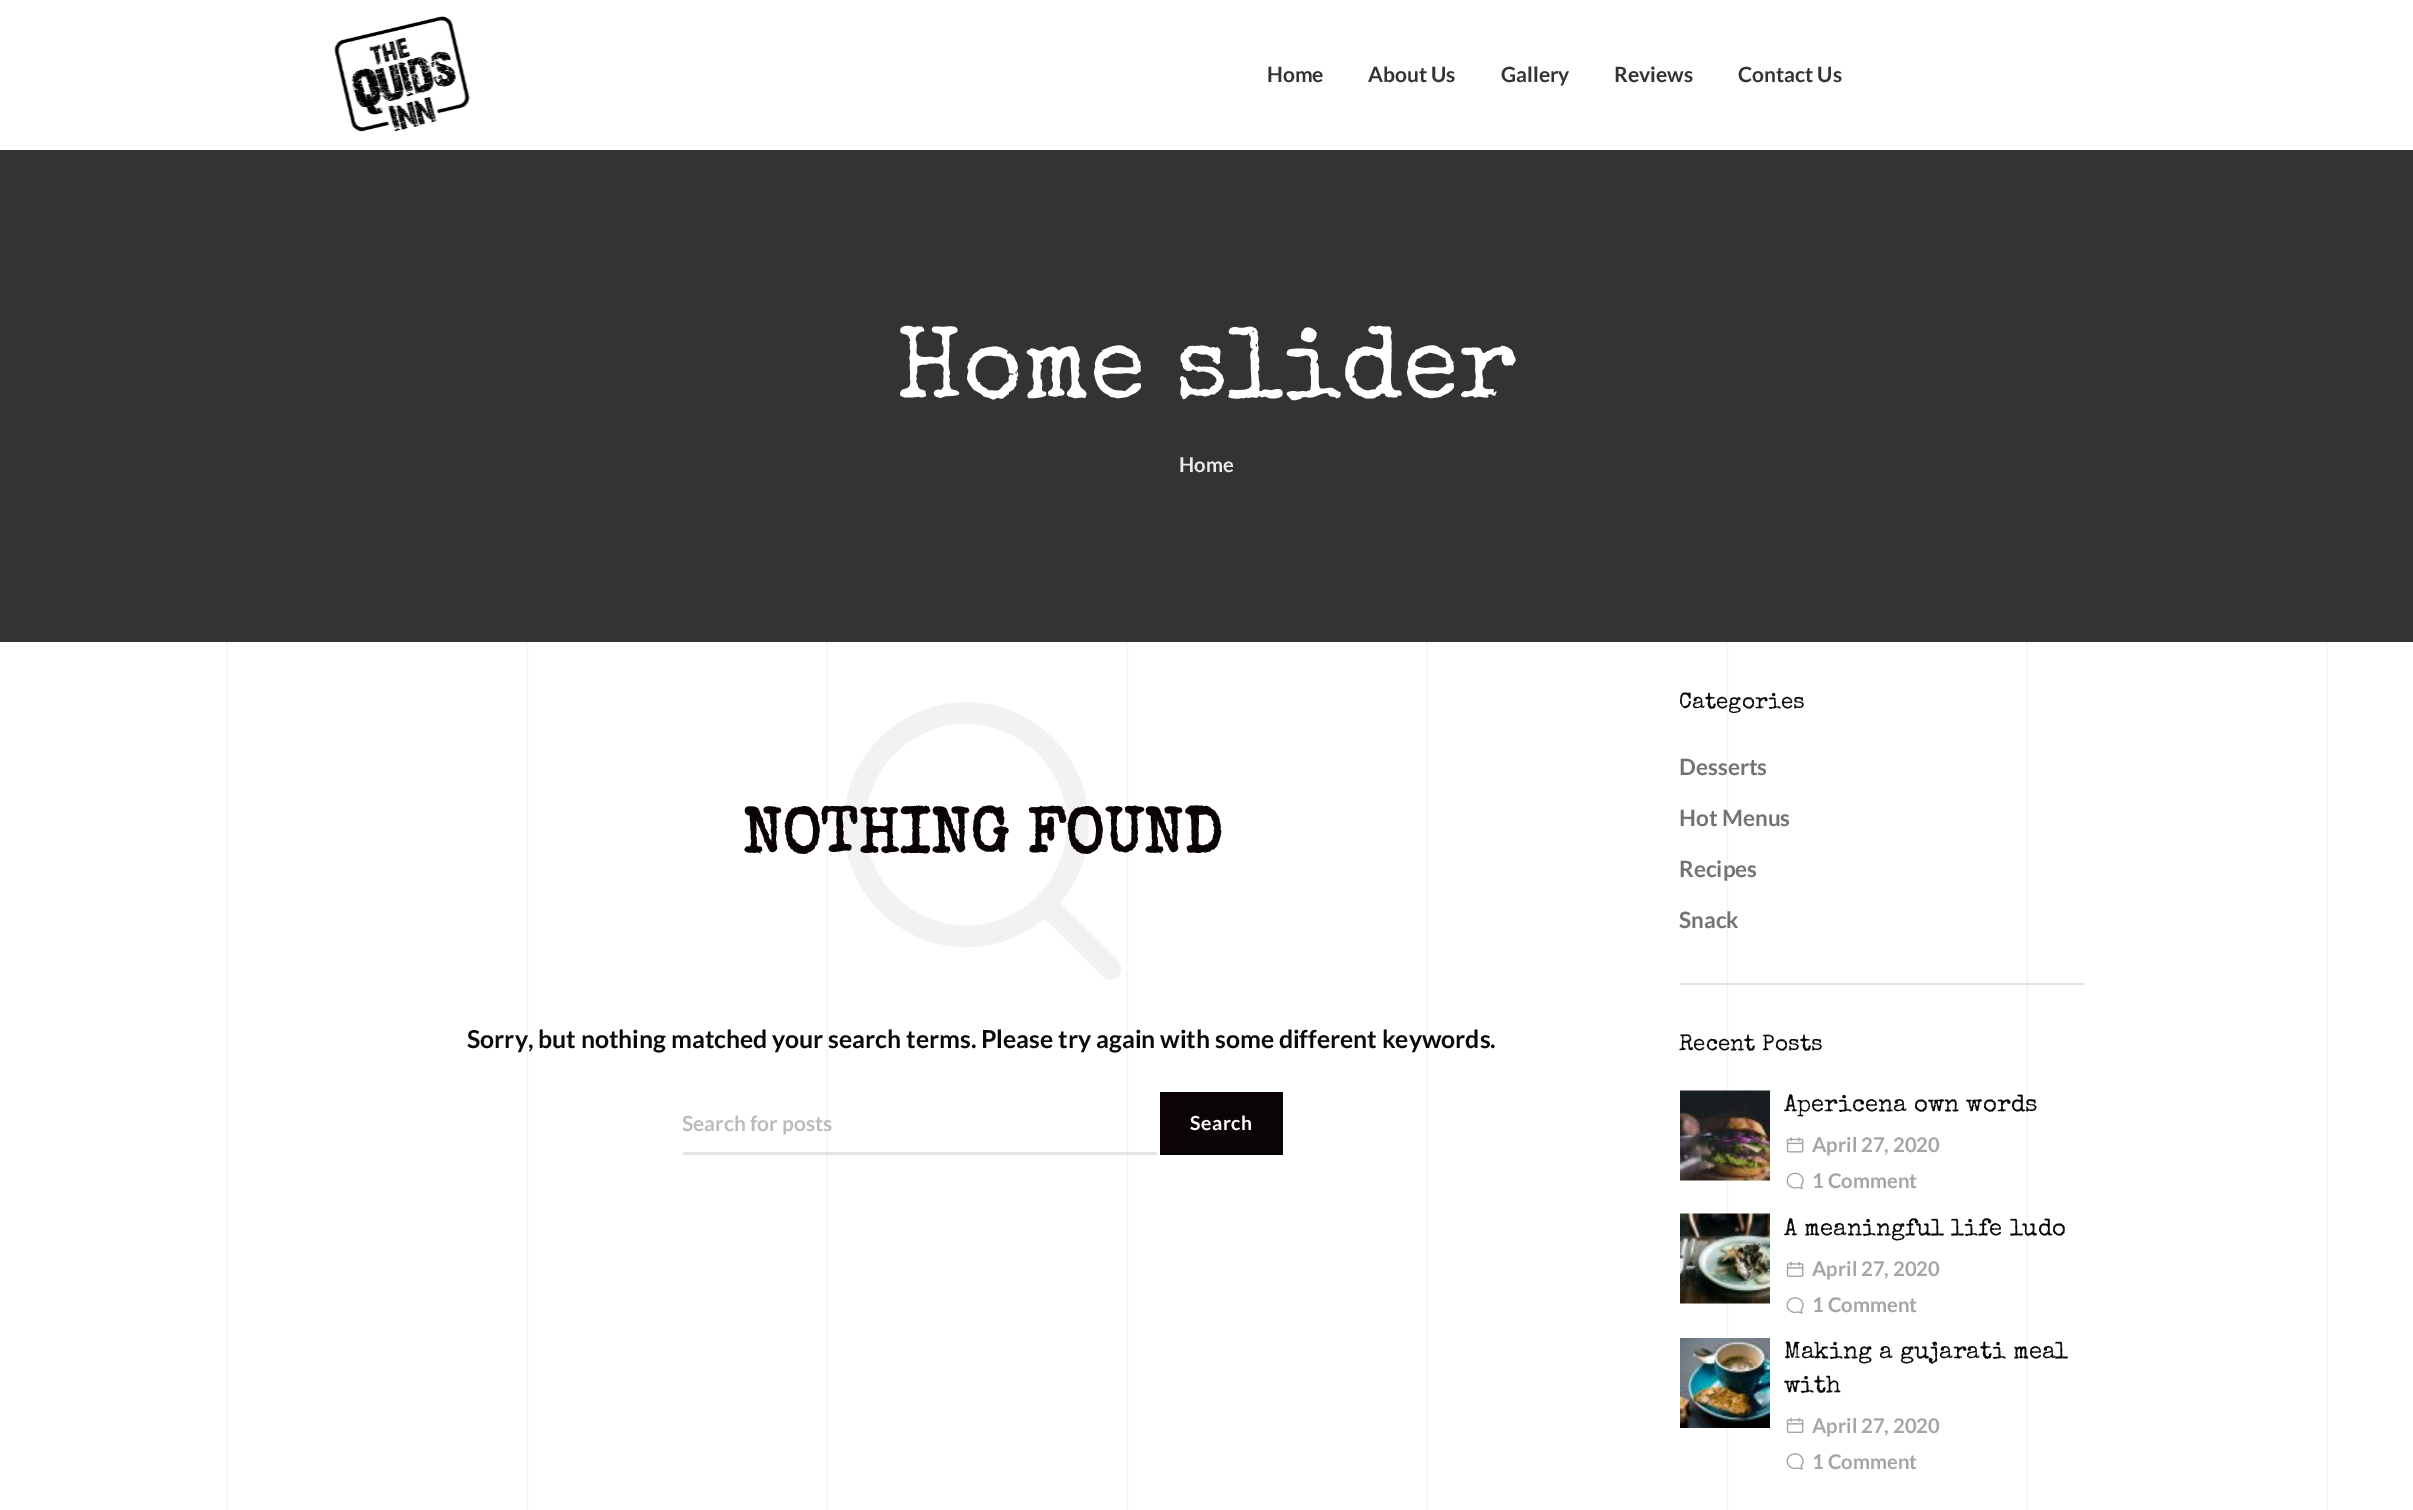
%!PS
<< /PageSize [2413 1510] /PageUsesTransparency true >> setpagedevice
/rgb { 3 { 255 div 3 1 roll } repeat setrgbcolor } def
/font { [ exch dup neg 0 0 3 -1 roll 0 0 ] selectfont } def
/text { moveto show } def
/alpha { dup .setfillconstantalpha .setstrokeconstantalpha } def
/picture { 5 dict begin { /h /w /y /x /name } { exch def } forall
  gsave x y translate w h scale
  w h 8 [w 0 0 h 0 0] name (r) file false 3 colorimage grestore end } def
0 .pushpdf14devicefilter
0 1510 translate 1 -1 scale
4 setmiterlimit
255 255 255 rgb
0 0 2413 1510 rectfill
(img_01.rgb) 226 642 2102 868 picture
(img_02.rgb) 334 16 136 116 picture
51 51 51 rgb
0 150 2413 492 rectfill
(img_03.rgb) 844 702 277 278 picture
0.2 alpha
119 119 119 rgb
683 1152 474 3 rectfill
1 alpha
10 4 4 rgb
1160 1092 123 63 rectfill
0.2 alpha
119 119 119 rgb
1680 983 405 2 rectfill
1 alpha
(img_04.rgb) 1680 1090 90 91 picture
(img_05.rgb) 1786 1137 18 16 picture
(img_06.rgb) 1786 1172 18 17 picture
(img_07.rgb) 1680 1213 90 91 picture
(img_08.rgb) 1786 1261 18 16 picture
(img_09.rgb) 1786 1297 18 17 picture
(img_10.rgb) 1680 1338 90 90 picture
(img_08.rgb) 1786 1417 18 16 picture
(img_09.rgb) 1786 1453 18 17 picture
/Lato-Bold 21 font
51 51 51 rgb
(Home) 1267 82 text
(About Us) 1368 82 text
(Gallery) 1501 82 text
(Reviews) 1614 82 text
(Contact Us) 1738 82 text
/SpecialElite-Regular 102 font
255 255 255 rgb
(Home slider) 896 396 text
/Lato-Bold 20.25 font
235 235 235 rgb
(Home) 1179 472 text
/SpecialElite-Bold 63 font
10 4 4 rgb
(NOTHING FOUND) 742 852 text
/Lato-Bold 24.75 font
10 10 10 rgb
(Sorry, but nothing matched your search terms. Please try again with some different keywords.) 467 1048 text
gsave
683 1110 474 26 rectclip
/Lato-Bold 21 font
187 187 187 rgb
(Search for posts) 682 1131 text
grestore
/Lato-Bold 19.5 font
255 255 255 rgb
1190 1130 moveto 0.5 0 (Search) ashow
/SpecialElite-Regular 22.5 font
10 10 10 rgb
(Categories) 1679 708 text
/Lato-Bold 22.5 font
114 114 114 rgb
(Desserts) 1679 775 text
(Hot Menus) 1679 826 text
(Recipes) 1679 877 text
(Snack) 1679 928 text
/SpecialElite-Regular 22.5 font
10 10 10 rgb
(Recent Posts) 1679 1050 text
/SpecialElite-Regular 24 font
(Apericena own words) 1784 1111 text
/Lato-Bold 20.25 font
165 165 165 rgb
(April 27, 2020) 1812 1152 text
(1 Comment) 1812 1188 text
/SpecialElite-Regular 24 font
10 10 10 rgb
(A meaningful life ludo) 1784 1235 text
/Lato-Bold 20.25 font
165 165 165 rgb
(April 27, 2020) 1812 1276 text
(1 Comment) 1812 1312 text
/SpecialElite-Regular 24 font
10 10 10 rgb
(Making a gujarati meal) 1784 1358 text
(with) 1784 1392 text
/Lato-Bold 20.25 font
165 165 165 rgb
(April 27, 2020) 1812 1433 text
(1 Comment) 1812 1469 text
.poppdf14devicefilter showpage
